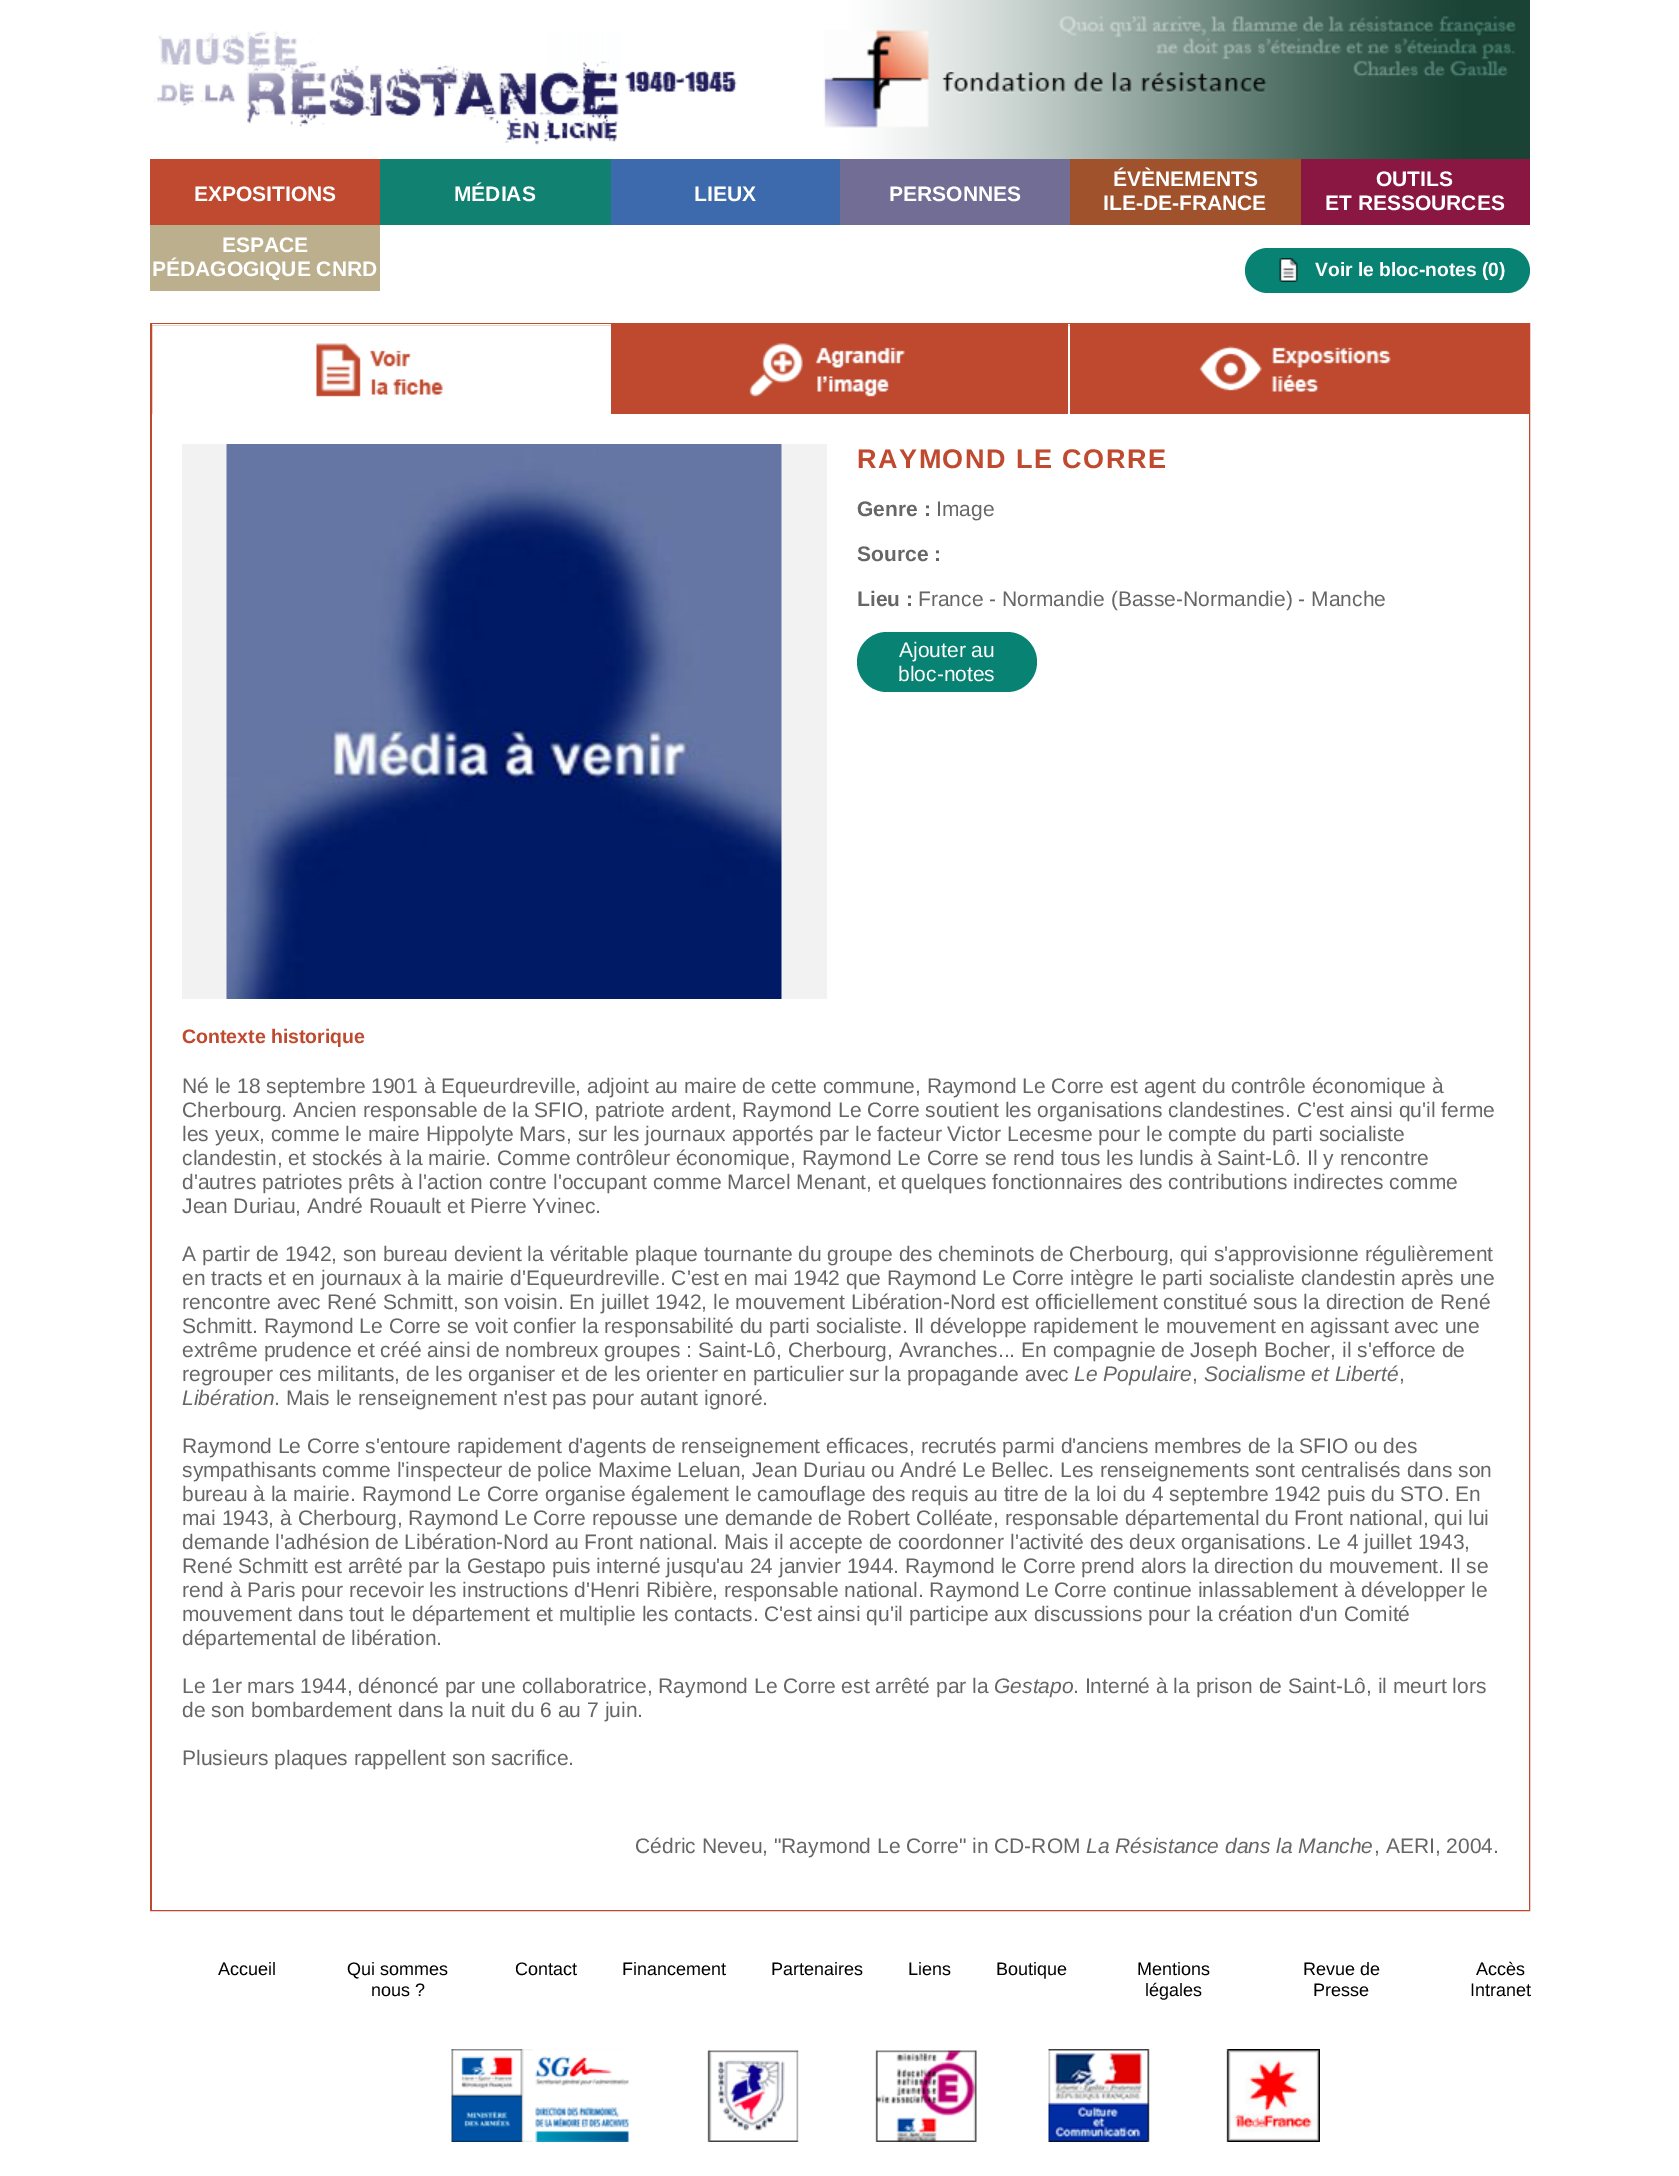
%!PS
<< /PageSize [1679 2176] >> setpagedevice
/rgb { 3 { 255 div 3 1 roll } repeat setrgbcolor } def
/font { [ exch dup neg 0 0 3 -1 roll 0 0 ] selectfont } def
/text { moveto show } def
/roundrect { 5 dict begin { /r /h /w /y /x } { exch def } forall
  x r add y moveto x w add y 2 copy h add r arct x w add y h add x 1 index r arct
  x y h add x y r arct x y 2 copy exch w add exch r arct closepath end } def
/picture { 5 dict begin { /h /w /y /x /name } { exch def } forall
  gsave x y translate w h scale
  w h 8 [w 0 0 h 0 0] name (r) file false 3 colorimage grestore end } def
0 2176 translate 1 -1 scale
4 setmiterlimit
255 255 255 rgb
0 0 1679 2176 rectfill
(img_01.rgb) 153 31 584 114 picture
(img_02.rgb) 823 0 707 159 picture
191 74 47 rgb
150 159 230 66 rectfill
17 130 114 rgb
380 159 231 66 rectfill
61 106 173 rgb
611 159 229 66 rectfill
114 109 149 rgb
840 159 230 66 rectfill
160 82 45 rgb
1070 159 231 66 rectfill
138 22 66 rgb
1301 159 229 66 rectfill
187 175 141 rgb
150 225 230 66 rectfill
8 130 115 rgb
1245 248 285 45 22.5 roundrect fill
(img_03.rgb) 1279 258 19 24 picture
191 73 46 rgb
2 setlinewidth
151 324 1378 1586 rectstroke
255 255 255 rgb
152 324 459 1 rectfill
(img_04.rgb) 316 343 127 54 picture
191 73 46 rgb
611 325 457 89 rectfill
(img_05.rgb) 749 343 156 54 picture
255 255 255 rgb
1068 324 2 1 rectfill
191 73 46 rgb
1070 325 458 89 rectfill
(img_06.rgb) 1199 346 192 46 picture
255 255 255 rgb
152 414 1377 1496 rectfill
242 242 242 rgb
182 444 645 555 rectfill
(img_07.rgb) 226 444 556 555 picture
8 130 115 rgb
857 632 180 60 30 roundrect fill
(img_08.rgb) 451 2049 869 93 picture
/LiberationSans-Bold 21 font
255 255 255 rgb
(EXPOSITIONS) 194 201 text
(MÉDIAS) 454 201 text
(LIEUX) 694 201 text
(PERSONNES) 889 201 text
(ÉVÈNEMENTS) 1113 186 text
(ILE-DE-FRANCE) 1103 210 text
(OUTILS) 1376 186 text
(ET RESSOURCES) 1325 210 text
(ESPACE) 222 252 text
(PÉDAGOGIQUE CNRD) 152 276 text
/LiberationSans-Bold 19.25 font
(Voir le bloc-notes \(0\)) 1315 276 text
/LiberationSans-Bold 27 font
191 74 47 rgb
857 468 moveto 1.5 0 (RAYMOND LE CORRE) ashow
/LiberationSans-Bold 21 font
102 102 102 rgb
(Genre :) 857 516 text
/LiberationSans-Regular 21 font
(Image) 936 516 text
/LiberationSans-Bold 21 font
(Source :) 857 561 text
(Lieu :) 857 606 text
/LiberationSans-Regular 21 font
(France - Normandie \(Basse-Normandie\) - Manche) 918 606 text
255 255 255 rgb
(Ajouter au) 899 657 text
(bloc-notes) 898 681 text
/LiberationSans-Bold 19.5 font
191 74 47 rgb
(Contexte historique) 182 1043 text
/LiberationSans-Regular 21 font
102 102 102 rgb
(Né le 18 septembre 1901 à Equeurdreville, adjoint au maire de cette commune, Raymond Le Corre est agent du contrôle économique à) 182 1093 text
(Cherbourg. Ancien responsable de la SFIO, patriote ardent, Raymond Le Corre soutient les organisations clandestines. C'est ainsi qu'il ferme) 182 1117 text
(les yeux, comme le maire Hippolyte Mars, sur les journaux apportés par le facteur Victor Lecesme pour le compte du parti socialiste) 182 1141 text
(clandestin, et stockés à la mairie. Comme contrôleur économique, Raymond Le Corre se rend tous les lundis à Saint-Lô. Il y rencontre) 182 1165 text
(d'autres patriotes prêts à l'action contre l'occupant comme Marcel Menant, et quelques fonctionnaires des contributions indirectes comme) 182 1189 text
(Jean Duriau, André Rouault et Pierre Yvinec.) 182 1213 text
(A partir de 1942, son bureau devient la véritable plaque tournante du groupe des cheminots de Cherbourg, qui s'approvisionne régulièrement) 182 1261 text
(en tracts et en journaux à la mairie d'Equeurdreville. C'est en mai 1942 que Raymond Le Corre intègre le parti socialiste clandestin après une) 182 1285 text
(rencontre avec René Schmitt, son voisin. En juillet 1942, le mouvement Libération-Nord est officiellement constitué sous la direction de René) 182 1309 text
(Schmitt. Raymond Le Corre se voit confier la responsabilité du parti socialiste. Il développe rapidement le mouvement en agissant avec une) 182 1333 text
(extrême prudence et créé ainsi de nombreux groupes : Saint-Lô, Cherbourg, Avranches... En compagnie de Joseph Bocher, il s'efforce de) 182 1357 text
(regrouper ces militants, de les organiser et de les orienter en particulier sur la propagande avec) 182 1381 text
/LiberationSans-Italic 21 font
(Le Populaire) 1074 1381 text
/LiberationSans-Regular 21 font
(,) 1192 1381 text
/LiberationSans-Italic 21 font
(Socialisme et Liberté) 1204 1381 text
/LiberationSans-Regular 21 font
(,) 1399 1381 text
/LiberationSans-Italic 21 font
(Libération) 182 1405 text
/LiberationSans-Regular 21 font
(. Mais le renseignement n'est pas pour autant ignoré.) 274 1405 text
(Raymond Le Corre s'entoure rapidement d'agents de renseignement efficaces, recrutés parmi d'anciens membres de la SFIO ou des) 182 1453 text
(sympathisants comme l'inspecteur de police Maxime Leluan, Jean Duriau ou André Le Bellec. Les renseignements sont centralisés dans son) 182 1477 text
(bureau à la mairie. Raymond Le Corre organise également le camouflage des requis au titre de la loi du 4 septembre 1942 puis du STO. En) 182 1501 text
(mai 1943, à Cherbourg, Raymond Le Corre repousse une demande de Robert Colléate, responsable départemental du Front national, qui lui) 182 1525 text
(demande l'adhésion de Libération-Nord au Front national. Mais il accepte de coordonner l'activité des deux organisations. Le 4 juillet 1943,) 182 1549 text
(René Schmitt est arrêté par la Gestapo puis interné jusqu'au 24 janvier 1944. Raymond le Corre prend alors la direction du mouvement. Il se) 182 1573 text
(rend à Paris pour recevoir les instructions d'Henri Ribière, responsable national. Raymond Le Corre continue inlassablement à développer le) 182 1597 text
(mouvement dans tout le département et multiplie les contacts. C'est ainsi qu'il participe aux discussions pour la création d'un Comité) 182 1621 text
(départemental de libération.) 182 1645 text
(Le 1er mars 1944, dénoncé par une collaboratrice, Raymond Le Corre est arrêté par la) 182 1693 text
/LiberationSans-Italic 21 font
(Gestapo) 994 1693 text
/LiberationSans-Regular 21 font
(. Interné à la prison de Saint-Lô, il meurt lors) 1073 1693 text
(de son bombardement dans la nuit du 6 au 7 juin.) 182 1717 text
(Plusieurs plaques rappellent son sacrifice.) 182 1765 text
(Cédric Neveu, "Raymond Le Corre" in CD-ROM) 635 1853 text
/LiberationSans-Italic 21 font
(La Résistance dans la Manche) 1086 1853 text
/LiberationSans-Regular 21 font
(, AERI, 2004.) 1374 1853 text
/LiberationSans-Regular 18 font
0 0 0 rgb
(Accueil) 218 1975 text
(Qui sommes) 347 1975 text
(nous ?) 371 1996 text
(Contact) 515 1975 text
(Financement) 622 1975 text
(Partenaires) 771 1975 text
(Liens) 908 1975 text
(Boutique) 996 1975 text
(Mentions) 1137 1975 text
(légales) 1145 1996 text
(Revue de) 1303 1975 text
(Presse) 1313 1996 text
(Accès) 1476 1975 text
(Intranet) 1470 1996 text
showpage
